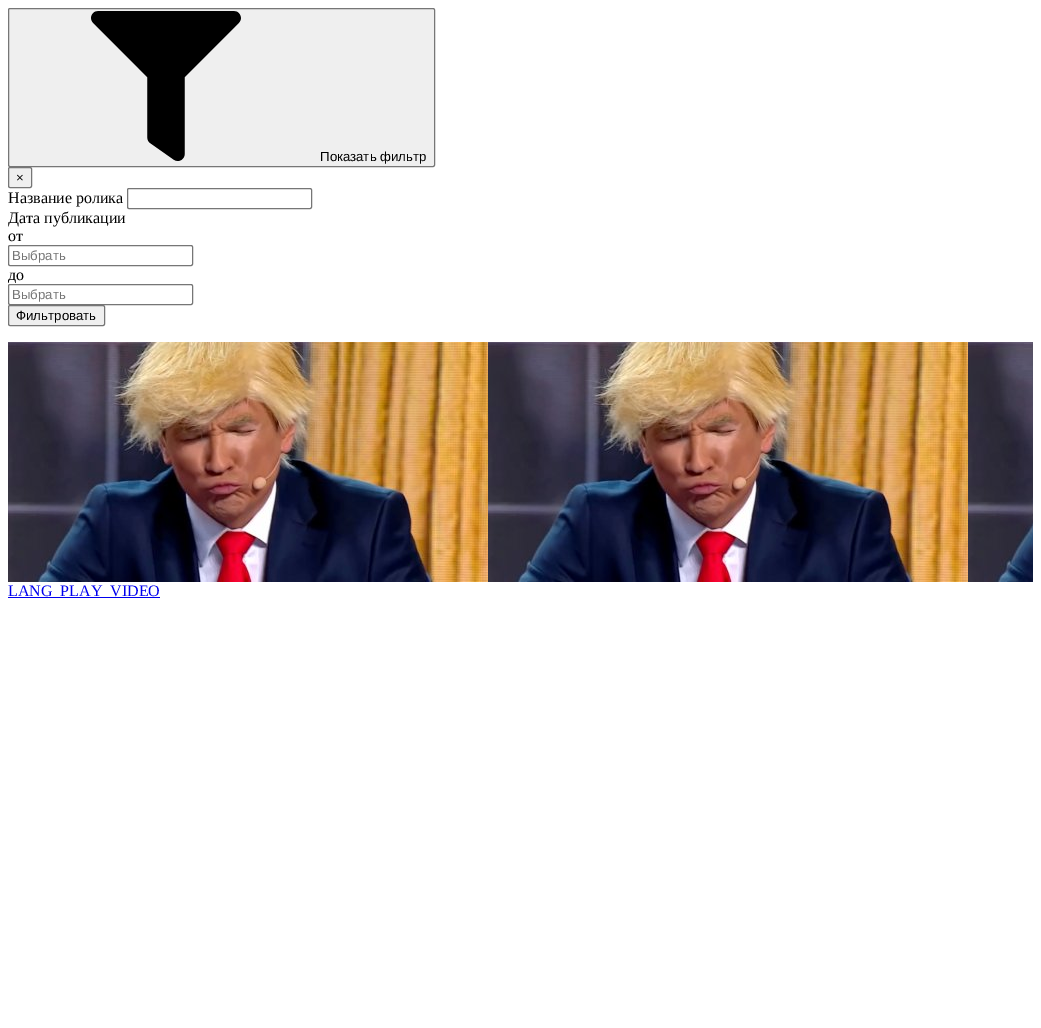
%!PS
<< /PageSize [1041 1028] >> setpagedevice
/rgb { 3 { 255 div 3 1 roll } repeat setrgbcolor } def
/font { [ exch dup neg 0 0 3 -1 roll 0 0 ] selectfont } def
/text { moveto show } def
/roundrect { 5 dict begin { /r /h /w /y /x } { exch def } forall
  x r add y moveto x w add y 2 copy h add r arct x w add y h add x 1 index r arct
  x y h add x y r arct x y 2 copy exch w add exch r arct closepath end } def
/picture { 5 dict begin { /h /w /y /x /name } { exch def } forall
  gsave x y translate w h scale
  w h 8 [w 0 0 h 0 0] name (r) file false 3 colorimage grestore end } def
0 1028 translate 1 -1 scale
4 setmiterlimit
255 255 255 rgb
0 0 1041 1028 rectfill
239 239 239 rgb
8.5 8.5 426 158 1.5 roundrect gsave fill grestore
118 118 118 rgb
stroke
(img_01.rgb) 91 11 150 150 picture
239 239 239 rgb
8.5 167.5 23 20 1.5 roundrect gsave fill grestore
118 118 118 rgb
stroke
127.5 188.5 184 20 1.5 roundrect stroke
8.5 245.5 184 20 1.5 roundrect stroke
8.5 284.5 184 20 1.5 roundrect stroke
239 239 239 rgb
8.5 305.5 96 20 1.5 roundrect gsave fill grestore
118 118 118 rgb
stroke
(img_02.rgb) 8 342 1025 240 picture
0 0 238 rgb
8 597 152 1 rectfill
/LiberationSans-Regular 13.25 font
0 0 0 rgb
(Показать фильтр) 320 161 text
(×) 16 182 text
/LiberationSerif-Regular 16 font
(Название ролика) 8 203 text
(Дата публикации) 8 223 text
(от) 8 241 text
/LiberationSans-Regular 13.25 font
117 117 117 rgb
(Выбрать) 12 260 text
/LiberationSerif-Regular 16 font
0 0 0 rgb
(до) 8 280 text
/LiberationSans-Regular 13.25 font
117 117 117 rgb
(Выбрать) 12 299 text
0 0 0 rgb
(Фильтровать) 16 320 text
/LiberationSerif-Regular 16 font
0 0 238 rgb
(LANG_PLAY_VIDEO) 8 596 text
showpage
